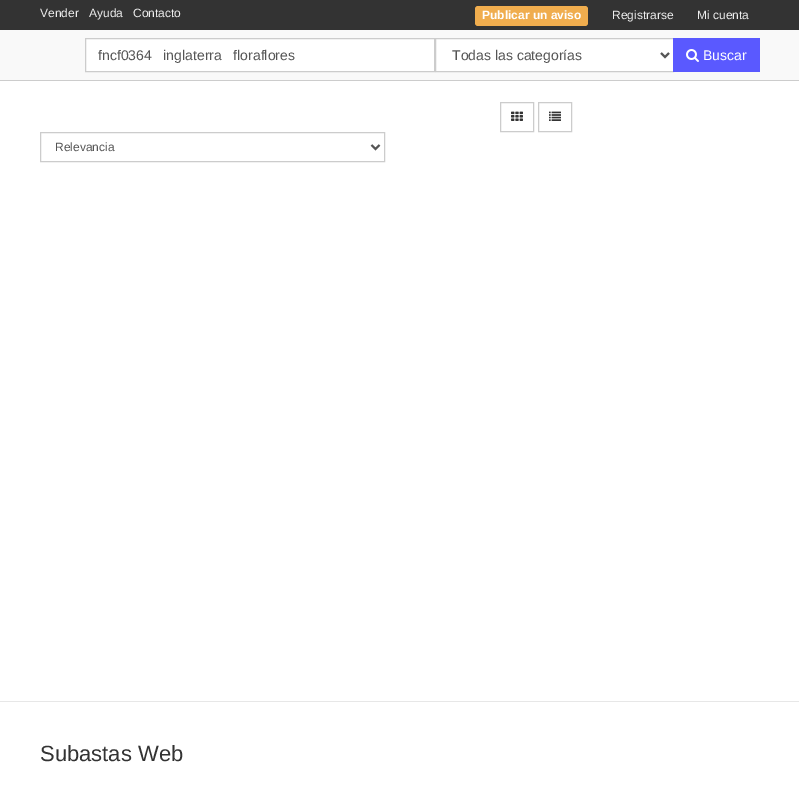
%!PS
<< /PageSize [799 796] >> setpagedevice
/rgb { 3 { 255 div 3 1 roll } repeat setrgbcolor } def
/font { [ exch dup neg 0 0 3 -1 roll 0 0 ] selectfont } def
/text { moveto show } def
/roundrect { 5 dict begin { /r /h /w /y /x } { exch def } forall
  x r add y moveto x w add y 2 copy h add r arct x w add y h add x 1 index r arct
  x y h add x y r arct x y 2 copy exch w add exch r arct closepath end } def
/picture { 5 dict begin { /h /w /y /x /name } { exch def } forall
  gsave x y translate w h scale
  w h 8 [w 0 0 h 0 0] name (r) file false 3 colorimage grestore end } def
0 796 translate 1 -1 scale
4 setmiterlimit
255 255 255 rgb
0 0 799 796 rectfill
51 51 51 rgb
0 0 799 30 rectfill
240 173 78 rgb
475 6 113 20 3 roundrect fill
249 249 249 rgb
0 30 799 50 rectfill
204 204 204 rgb
0 80 799 1 rectfill
255 255 255 rgb
85.5 38.5 moveto 349 0 rlineto 0 33 rlineto -349 0 rlineto closepath gsave fill grestore
204 204 204 rgb
stroke
255 255 255 rgb
435.5 38.5 moveto 238 0 rlineto 0 33 rlineto -238 0 rlineto closepath gsave fill grestore
204 204 204 rgb
stroke
85 85 85 rgb
2 setlinewidth
661 53 moveto 4 4 rlineto 4 -4 rlineto stroke
90 89 255 rgb
673 38 87 34 rectfill
(img_01.rgb) 686 49 13 13 picture
204 204 204 rgb
1 setlinewidth
500.5 102.5 33 29 rectstroke
(img_02.rgb) 511 111 12 10 picture
538.5 102.5 33 29 rectstroke
(img_03.rgb) 549 111 12 10 picture
40.5 132.5 344 29 rectstroke
85 85 85 rgb
2 setlinewidth
371.5 145 moveto 4 4 rlineto 4 -4 rlineto stroke
231 231 231 rgb
0 701 799 1 rectfill
/LiberationSans-Regular 12 font
238 238 238 rgb
(Vender) 40 17 text
(Ayuda) 89 17 text
(Contacto) 133 17 text
/LiberationSans-Bold 12 font
255 255 255 rgb
(Publicar un aviso) 482 19 text
/LiberationSans-Regular 12 font
238 238 238 rgb
(Registrarse) 612 19 text
(Mi cuenta) 697 19 text
/LiberationSans-Regular 14 font
85 85 85 rgb
(fncf0364   inglaterra   floraflores) 98 60 text
(Todas las categorías) 452 60 text
255 255 255 rgb
(Buscar) 703 60 text
/LiberationSans-Regular 12 font
85 85 85 rgb
(Relevancia) 55 151 text
/LiberationSans-Regular 22 font
51 51 51 rgb
(Subastas Web) 40 761 text
showpage
